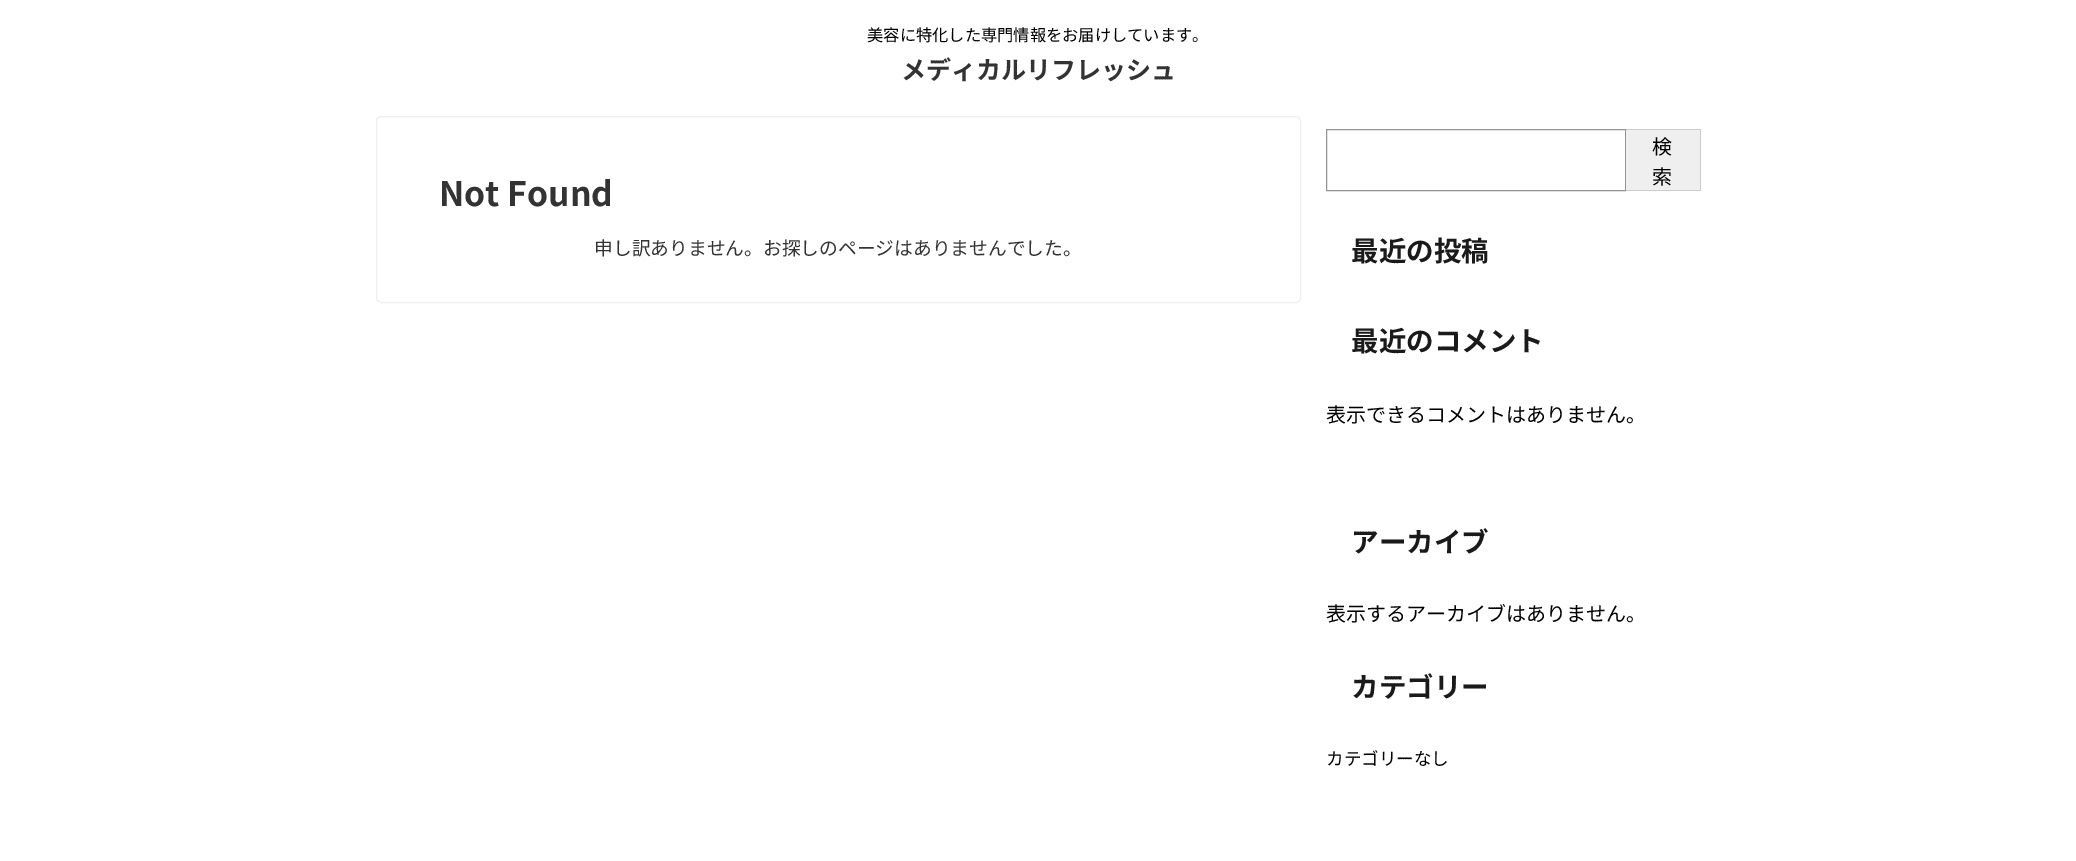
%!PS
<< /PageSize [2076 861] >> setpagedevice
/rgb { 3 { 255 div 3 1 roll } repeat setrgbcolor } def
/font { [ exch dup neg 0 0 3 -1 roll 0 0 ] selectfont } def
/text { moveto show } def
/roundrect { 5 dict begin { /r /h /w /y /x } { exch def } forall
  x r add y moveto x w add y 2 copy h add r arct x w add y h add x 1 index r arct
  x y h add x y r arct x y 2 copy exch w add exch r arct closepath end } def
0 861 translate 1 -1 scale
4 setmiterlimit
255 255 255 rgb
0 0 2076 861 rectfill
238 238 238 rgb
376.5 116.5 924 186 4.5 roundrect stroke
148 148 148 rgb
1326.5 129.5 299 61 rectstroke
239 239 239 rgb
1626 130 74 60 rectfill
204 204 204 rgb
1626 129 75 1 rectfill
1700 129 1 62 rectfill
1626 190 75 1 rectfill
/NotoSansJP-Regular 16.25 font
0 0 0 rgb
(美容に特化した専門情報をお届けしています。) 867 41 text
/NotoSansJP-Bold 25 font
51 51 51 rgb
(メディカルリフレッシュ) 901 79 text
/NotoSansJP-Bold 33.75 font
(Not Found) 439 206 text
/NotoSansJP-Regular 18.75 font
(申し訳ありません。お探しのページはありませんでした。) 594 255 text
/NotoSansJP-Regular 20 font
0 0 0 rgb
(検) 1652 154 text
(索) 1652 184 text
/NotoSansJP-Bold 27.5 font
26 26 26 rgb
(最近の投稿) 1351 261 text
(最近のコメント) 1351 351 text
/NotoSansJP-Regular 20 font
0 0 0 rgb
(表示できるコメントはありません。) 1326 422 text
/NotoSansJP-Bold 27.5 font
26 26 26 rgb
(アーカイブ) 1351 552 text
/NotoSansJP-Regular 20 font
0 0 0 rgb
(表示するアーカイブはありません。) 1326 621 text
/NotoSansJP-Bold 27.5 font
26 26 26 rgb
(カテゴリー) 1351 697 text
/NotoSansJP-Regular 17.5 font
0 0 0 rgb
(カテゴリーなし) 1326 765 text
showpage
